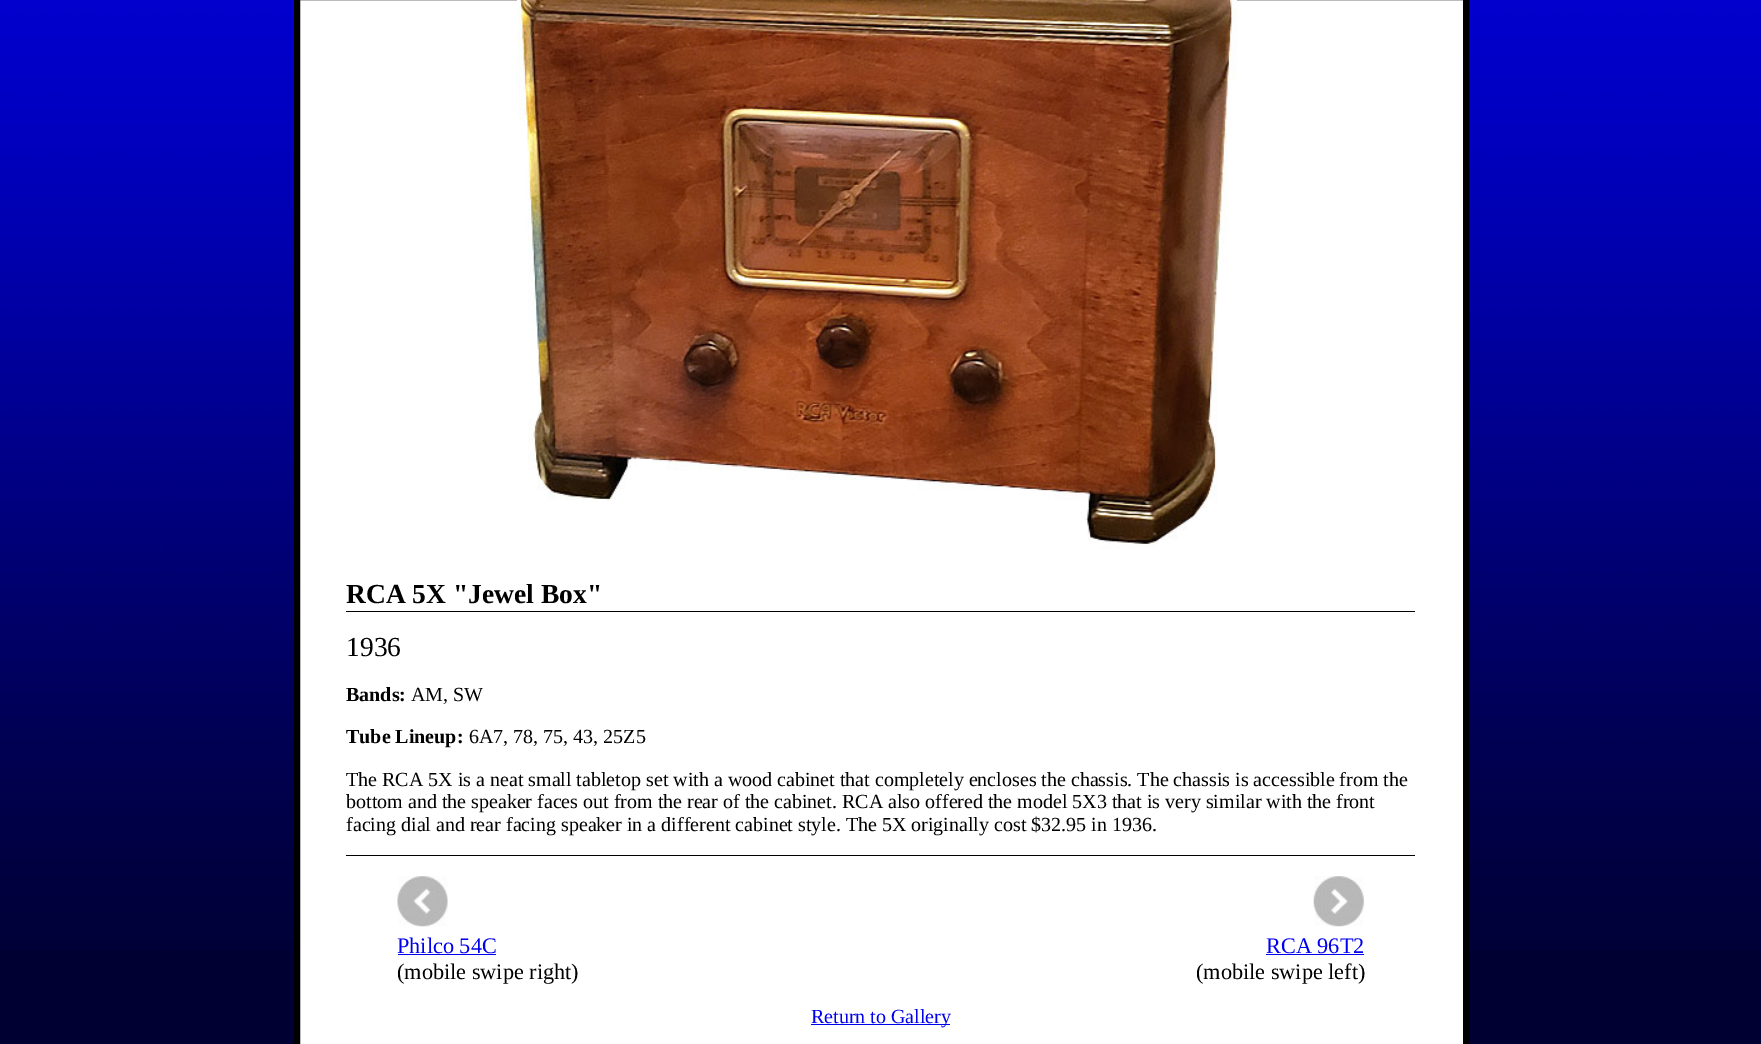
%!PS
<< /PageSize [1761 1044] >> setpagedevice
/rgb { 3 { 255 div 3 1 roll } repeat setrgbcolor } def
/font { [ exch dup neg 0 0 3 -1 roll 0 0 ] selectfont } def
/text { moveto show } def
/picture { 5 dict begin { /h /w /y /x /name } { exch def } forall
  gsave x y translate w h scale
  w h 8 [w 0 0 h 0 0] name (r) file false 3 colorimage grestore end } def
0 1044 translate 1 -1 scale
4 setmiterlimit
0 0 51 rgb
0 0 1761 1044 rectfill
(img_01.rgb) 0 0 1761 950 picture
255 255 255 rgb
297 -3 moveto 1169 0 rlineto 0 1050 rlineto -1169 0 rlineto closepath gsave fill grestore
0 0 0 rgb
6 setlinewidth
stroke
(img_02.rgb) 517 0 720 549 picture
346 611 1069 1 rectfill
346 855 1069 1 rectfill
(img_03.rgb) 397 876 51 51 picture
0 0 238 rgb
398 954 98 1 rectfill
(img_04.rgb) 1313 876 51 51 picture
1266 954 98 1 rectfill
811 1024 139 1 rectfill
/LiberationSerif-Bold 27.5 font
0 0 0 rgb
(RCA 5X "Jewel Box") 346 603 text
/LiberationSerif-Regular 27.5 font
(1936) 346 656 text
/LiberationSerif-Bold 20 font
(Bands:) 346 701 text
/LiberationSerif-Regular 20 font
(AM, SW) 411 701 text
/LiberationSerif-Bold 20 font
(Tube Lineup:) 346 743 text
/LiberationSerif-Regular 20 font
(6A7, 78, 75, 43, 25Z5) 469 743 text
(The RCA 5X is a neat small tabletop set with a wood cabinet that completely encloses the chassis. The chassis is accessible from the) 346 786 text
(bottom and the speaker faces out from the rear of the cabinet. RCA also offered the model 5X3 that is very similar with the front) 346 808 text
(facing dial and rear facing speaker in a different cabinet style. The 5X originally cost $32.95 in 1936.) 346 831 text
/LiberationSerif-Regular 22.25 font
0 0 238 rgb
(Philco 54C) 397 953 text
0 0 0 rgb
(\(mobile swipe right\)) 397 979 text
0 0 238 rgb
(RCA 96T2) 1266 953 text
0 0 0 rgb
(\(mobile swipe left\)) 1196 979 text
/LiberationSerif-Regular 20 font
0 0 238 rgb
(Return to Gallery) 811 1023 text
showpage
